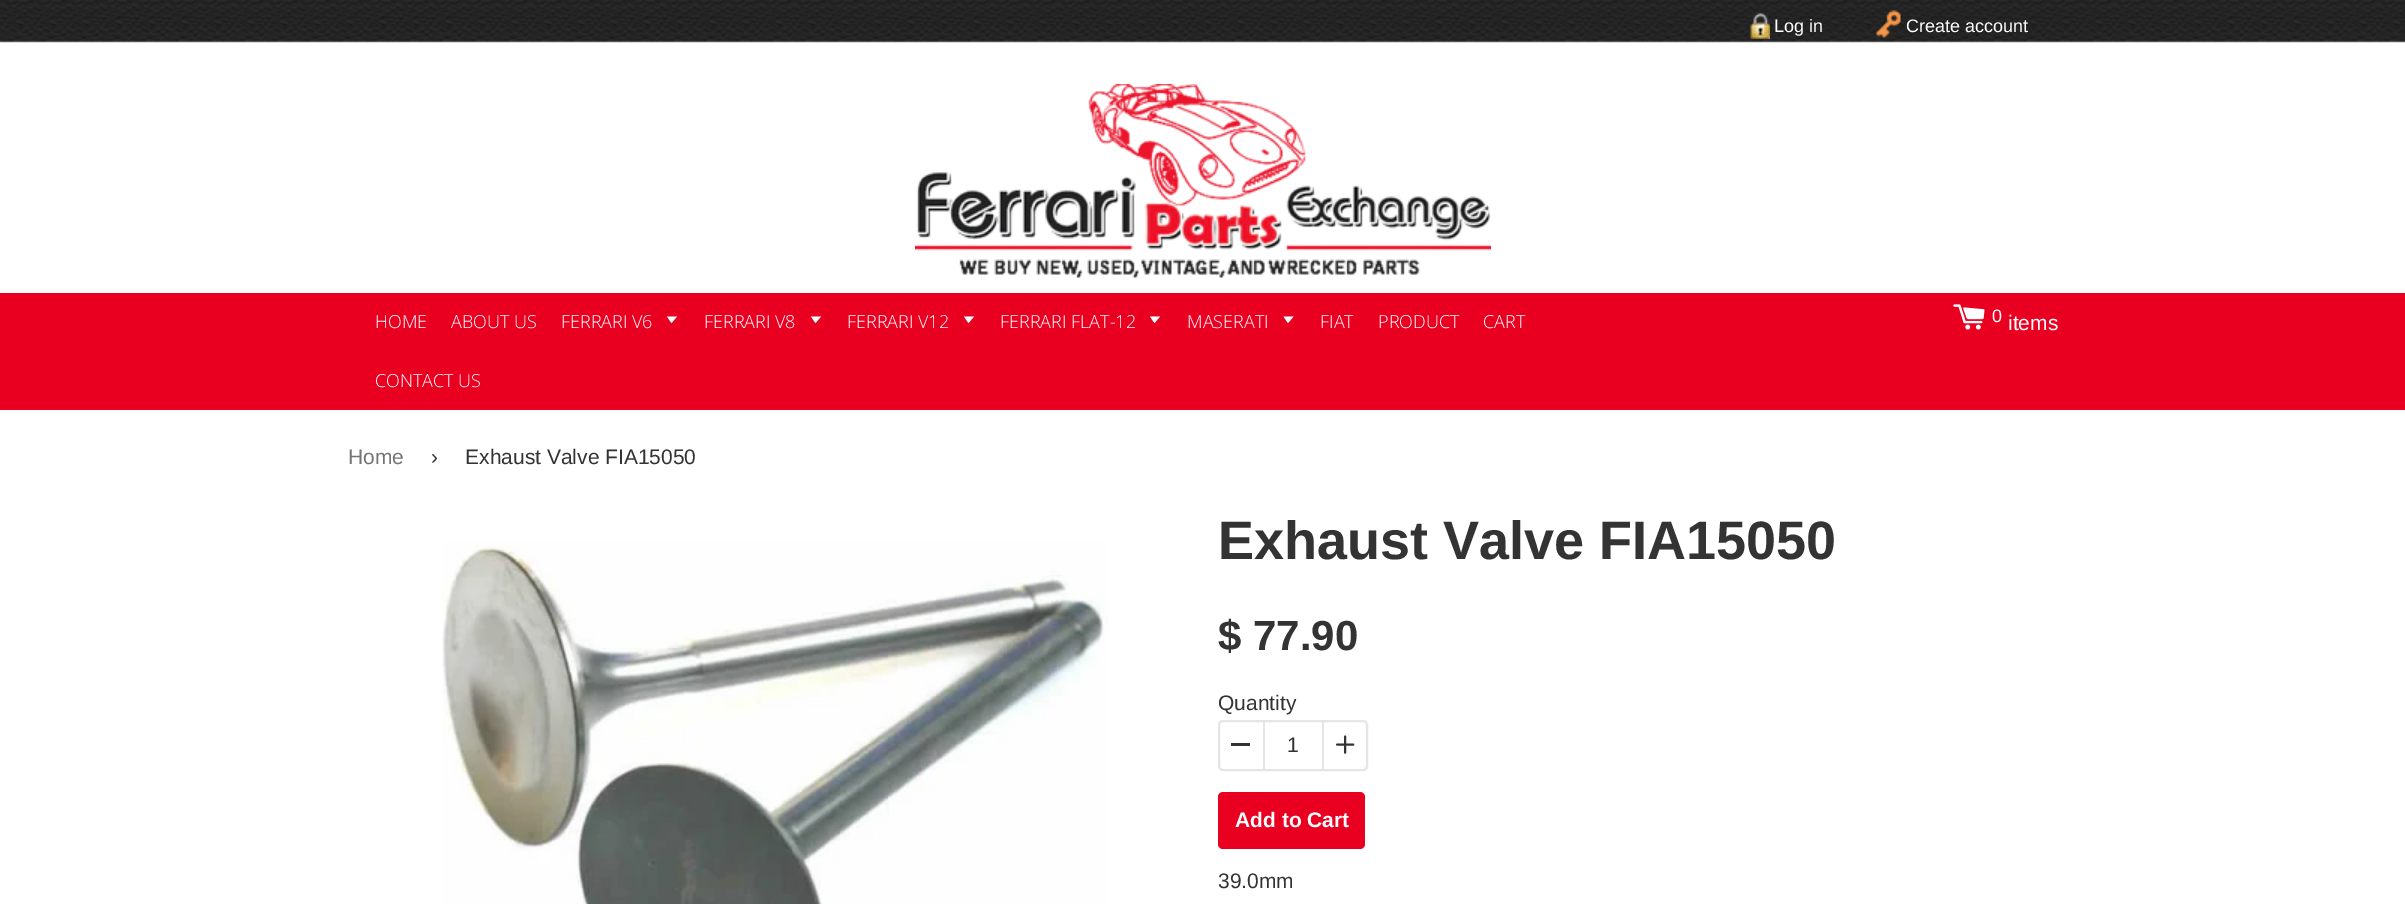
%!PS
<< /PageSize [2405 904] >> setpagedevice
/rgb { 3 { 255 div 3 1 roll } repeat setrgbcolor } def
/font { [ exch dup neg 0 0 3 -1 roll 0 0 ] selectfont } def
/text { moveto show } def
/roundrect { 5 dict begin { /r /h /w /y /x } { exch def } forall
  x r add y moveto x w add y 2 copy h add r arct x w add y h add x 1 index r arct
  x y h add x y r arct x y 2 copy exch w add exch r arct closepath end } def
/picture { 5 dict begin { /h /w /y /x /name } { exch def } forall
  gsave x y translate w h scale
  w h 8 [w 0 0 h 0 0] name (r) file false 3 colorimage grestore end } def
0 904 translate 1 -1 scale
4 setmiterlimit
255 255 255 rgb
0 0 2405 904 rectfill
(img_01.rgb) 0 0 2405 43 picture
(img_02.rgb) 1750 13 20 26 picture
(img_03.rgb) 1876 10 25 28 picture
(img_04.rgb) 915 84 576 194 picture
233 0 32 rgb
0 293 2405 117 rectfill
255 255 255 rgb
667 316.5 moveto 4.5 6.5 rlineto 5.5 -6.5 rlineto closepath fill
811 316.5 moveto 4.5 6.5 rlineto 5.5 -6.5 rlineto closepath fill
964 316.5 moveto 4.5 6.5 rlineto 5.5 -6.5 rlineto closepath fill
1150 316.5 moveto 4.5 6.5 rlineto 5.5 -6.5 rlineto closepath fill
1283.5 316.5 moveto 4.5 6.5 rlineto 5.5 -6.5 rlineto closepath fill
(img_05.rgb) 1953 304 32 26 picture
(img_06.rgb) 442 542 666 362 picture
229 229 229 rgb
2 setlinewidth
1219 721 148 49 4 roundrect stroke
1263 720 2 51 rectfill
51 51 51 rgb
1231 743 19 3 rectfill
229 229 229 rgb
1322 720 2 51 rectfill
(img_07.rgb) 1336 735 19 19 picture
233 0 32 rgb
1218 792 147 57 5 roundrect fill
/LiberationSans-Regular 18 font
255 255 255 rgb
(Log in) 1774 32 text
(Create account) 1906 32 text
/OpenSans-Light 18 font
(HOME) 375 328 text
(ABOUT US) 451 328 text
(FERRARI V6) 561 328 text
(FERRARI V8) 704 328 text
(FERRARI V12) 847 328 text
(FERRARI FLAT-12) 1000 328 text
(MASERATI) 1187 328 text
(FIAT) 1320 328 text
(PRODUCT) 1378 328 text
(CART) 1483 328 text
(CONTACT US) 375 387 text
/LiberationSans-Regular 18 font
(0) 1992 322 text
/LiberationSans-Regular 21 font
(items) 2008 330 text
116 116 116 rgb
(Home) 348 464 text
51 51 51 rgb
(›) 431 464 text
(Exhaust Valve FIA15050) 465 464 text
/LiberationSans-Bold 54 font
(Exhaust Valve FIA15050) 1218 559 text
/LiberationSans-Bold 42 font
($ 77.90) 1218 650 text
/LiberationSans-Regular 21 font
(Quantity) 1218 710 text
(1) 1287 752 text
/LiberationSans-Bold 21 font
255 255 255 rgb
(Add to Cart) 1235 827 text
/LiberationSans-Regular 21 font
51 51 51 rgb
(39.0mm) 1218 888 text
showpage
